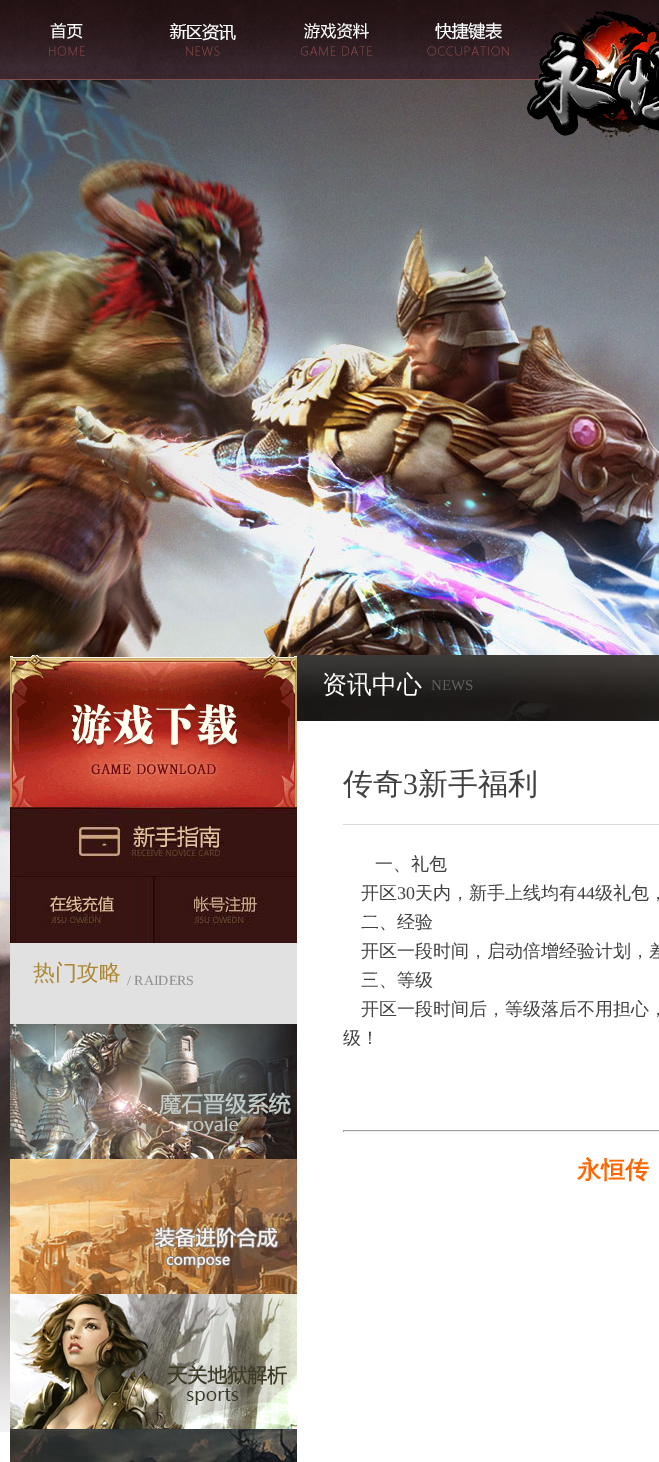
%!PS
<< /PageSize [659 1462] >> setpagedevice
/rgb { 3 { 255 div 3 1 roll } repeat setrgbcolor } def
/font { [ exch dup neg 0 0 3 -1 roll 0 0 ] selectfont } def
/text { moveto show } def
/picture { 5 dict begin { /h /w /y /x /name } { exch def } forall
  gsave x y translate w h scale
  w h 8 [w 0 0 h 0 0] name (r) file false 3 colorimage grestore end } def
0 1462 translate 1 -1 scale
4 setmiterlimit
255 255 255 rgb
0 0 659 1462 rectfill
(img_01.rgb) 0 80 659 1352 picture
(img_02.rgb) 0 0 659 80 picture
(img_03.rgb) 1 0 133 79 picture
(img_04.rgb) 135 0 134 79 picture
(img_05.rgb) 270 0 134 79 picture
(img_07.rgb) 527 10 132 128 picture
(img_06.rgb) 405 0 134 80 picture
(img_08.rgb) 10 655 287 152 picture
(img_09.rgb) 10 807 287 69 picture
(img_10.rgb) 10 876 144 67 picture
(img_11.rgb) 154 876 143 67 picture
225 225 225 rgb
10 943 287 81 rectfill
(img_12.rgb) 10 1024 287 135 picture
(img_13.rgb) 10 1159 287 135 picture
(img_14.rgb) 10 1294 287 135 picture
(img_15.rgb) 10 1429 287 33 picture
(img_16.rgb) 297 655 362 66 picture
255 255 255 rgb
297 721 362 711 rectfill
218 218 218 rgb
343 824 316 1 rectfill
159 159 159 rgb
343 1130 316 1 rectfill
238 238 238 rgb
343 1131 316 1 rectfill
159 159 159 rgb
343 1130 1 2 rectfill
/WenQuanYiZenHei-Medium 22 font
173 135 50 rgb
(热门攻略) 33 980 text
/LiberationSerif-Regular 14 font
143 143 143 rgb
(/ RAIDERS) 127 985 text
/WenQuanYiZenHei-Medium 25 font
255 255 255 rgb
(资讯中心) 322 693 text
/LiberationSerif-Regular 15 font
100 96 95 rgb
(NEWS) 431 690 text
/WenQuanYiZenHei-Medium 30 font
65 65 65 rgb
(传奇) 343 794 text
/LiberationSerif-Regular 30 font
(3) 403 794 text
/WenQuanYiZenHei-Medium 30 font
(新手福利) 418 794 text
/WenQuanYiZenHei-Medium 18 font
(一、礼包) 375 870 text
(开区) 361 899 text
/LiberationSerif-Regular 18 font
(30) 397 899 text
/WenQuanYiZenHei-Medium 18 font
(天内，新手上线均有) 415 899 text
/LiberationSerif-Regular 18 font
(44) 577 899 text
/WenQuanYiZenHei-Medium 18 font
(级礼包，) 595 899 text
(二、经验) 361 928 text
(开区一段时间，启动倍增经验计划，差) 361 957 text
(三、等级) 361 986 text
(开区一段时间后，等级落后不用担心，) 361 1015 text
(级！) 343 1044 text
/WenQuanYiZenHei-Bold 24 font
255 102 0 rgb
(永恒传) 577 1178 text
showpage
